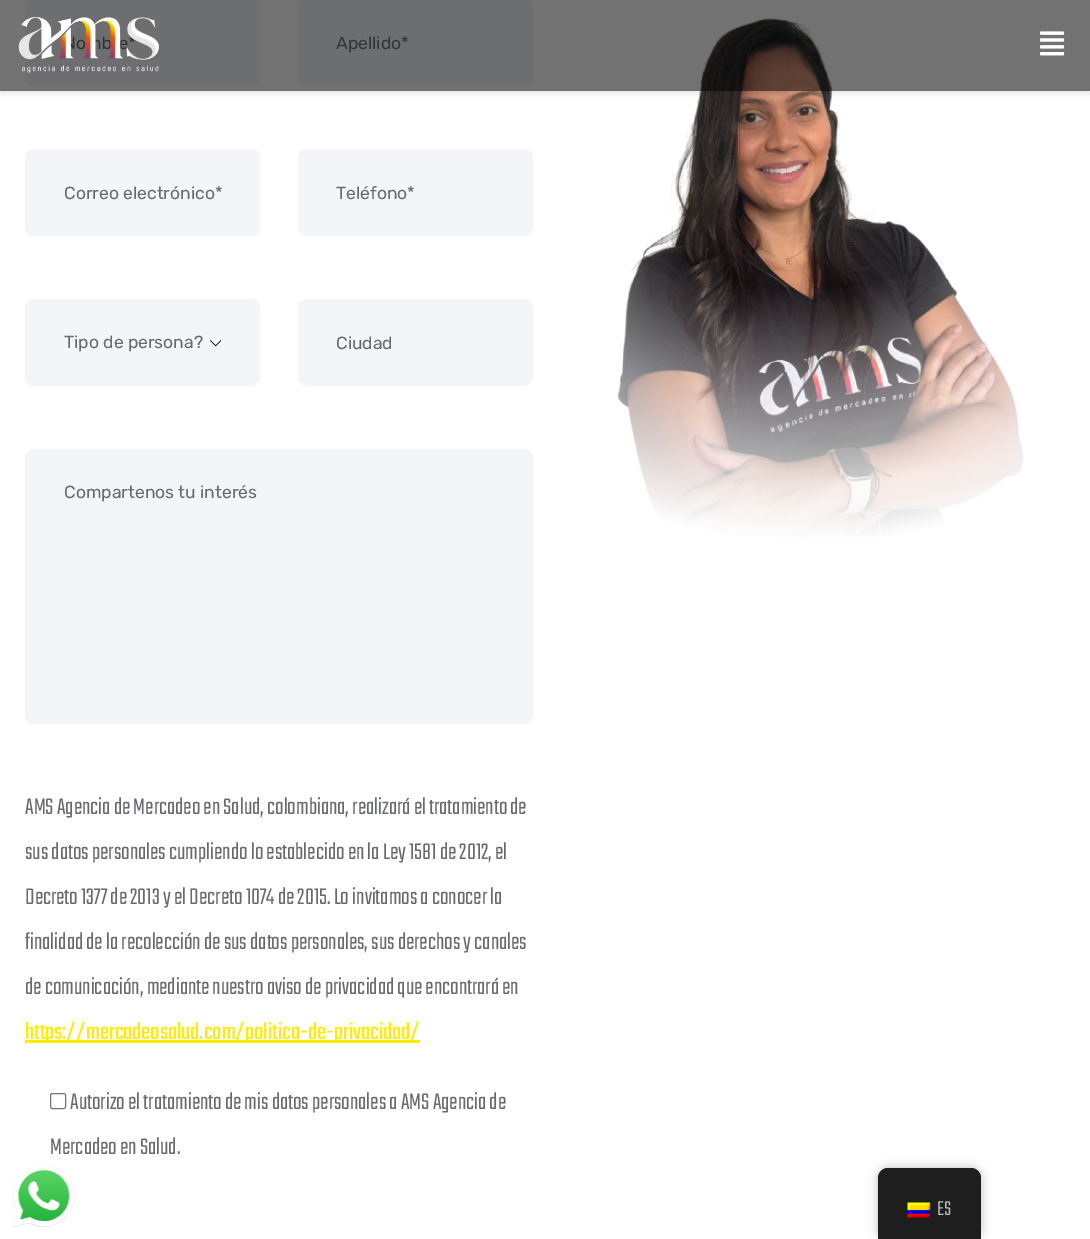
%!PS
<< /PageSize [1090 1239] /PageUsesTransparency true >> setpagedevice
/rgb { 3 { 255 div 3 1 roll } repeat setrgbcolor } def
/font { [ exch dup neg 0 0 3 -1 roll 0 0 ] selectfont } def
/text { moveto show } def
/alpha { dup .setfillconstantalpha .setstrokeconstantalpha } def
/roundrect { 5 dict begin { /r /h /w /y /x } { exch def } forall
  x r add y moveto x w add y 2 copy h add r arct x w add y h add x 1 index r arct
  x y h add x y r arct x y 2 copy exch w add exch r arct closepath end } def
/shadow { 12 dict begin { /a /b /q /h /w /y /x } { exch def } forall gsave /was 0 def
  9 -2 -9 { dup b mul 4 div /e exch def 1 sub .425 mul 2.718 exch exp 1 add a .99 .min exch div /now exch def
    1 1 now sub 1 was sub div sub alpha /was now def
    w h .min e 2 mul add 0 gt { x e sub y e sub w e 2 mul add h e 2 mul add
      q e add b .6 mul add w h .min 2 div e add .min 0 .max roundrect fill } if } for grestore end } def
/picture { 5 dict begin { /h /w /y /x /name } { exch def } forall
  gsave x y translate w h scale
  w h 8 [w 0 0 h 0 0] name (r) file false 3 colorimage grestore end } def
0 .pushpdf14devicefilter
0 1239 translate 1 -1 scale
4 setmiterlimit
255 255 255 rgb
0 0 1090 1239 rectfill
244 245 248 rgb
25.5 -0.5 234 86 8.5 roundrect gsave fill grestore
stroke
298.5 -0.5 234 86 8.5 roundrect gsave fill grestore
stroke
(img_04.rgb) 617 18 407 519 picture
gsave
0 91 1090 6 rectclip
0 0 0 rgb
0 3 1090 91 0 3 0.1 shadow
grestore
0.1 alpha
0 0 0 rgb
0 0 1090 91 rectfill
1 alpha
244 245 248 rgb
25.5 149.5 234 86 8.5 roundrect gsave fill grestore
stroke
298.5 149.5 234 86 8.5 roundrect gsave fill grestore
stroke
25 299 235 87 9 roundrect fill
(img_03.rgb) 210 340 11 7 picture
25.5 299.5 234 86 8.5 roundrect stroke
298.5 299.5 234 86 8.5 roundrect gsave fill grestore
stroke
25.5 449.5 507 274 8.5 roundrect gsave fill grestore
stroke
255 237 0 rgb
25 1040 395 3 rectfill
118 118 118 rgb
50.5 1093.5 15 15 2 roundrect stroke
(img_05.rgb) 12 1165 63 62 picture
0 0 0 rgb
878 1168 103 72 10 5 0.25 shadow
30 30 30 rgb
888 1168 moveto 83 0 rlineto 5.5 0 10 4.5 10 10 rcurveto 0 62 rlineto -103 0 rlineto 0 -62 rlineto 0 -5.5 4.5 -10 10 -10 rcurveto closepath fill
(img_06.rgb) 907 1202 24 16 picture
/Rubik-Regular 17.5 font
104 106 111 rgb
(o) 76 49 text
(Apellido*) 336 49 text
0.5 alpha
0 0 0 rgb
0 0 1090 91 rectfill
1 alpha
(img_02.rgb) 1040 31 25 25 picture
(img_01.rgb) 18 17 141 56 picture
104 106 111 rgb
(Correo electrónico*) 64 199 text
(Teléfono*) 336 199 text
(Tipo de persona?) 64 348 text
(Ciudad) 336 349 text
(Compartenos tu interés) 64 498 text
/Teko-Light 25 font
(AMS Agencia de Mercadeo en Salud, colombiana, realizará el tratamiento de) 25 814 text
(sus datos personales cumpliendo lo establecido en la Ley 1581 de 2012, el) 25 859 text
(Decreto 1377 de 2013 y el Decreto 1074 de 2015. Lo invitamos a conocer la) 25 904 text
(finalidad de la recolección de sus datos personales, sus derechos y canales) 25 949 text
(de comunicación, mediante nuestro aviso de privacidad que encontrará en) 25 994 text
/Teko-Regular 25 font
255 237 0 rgb
(https://mercadeosalud.com/politica-de-privacidad/) 25 1039 text
/Teko-Light 25 font
104 106 111 rgb
(Autorizo el tratamiento de mis datos personales a AMS Agencia de) 70 1109 text
(Mercadeo en Salud.) 50 1154 text
/Teko-Light 22 font
189 189 189 rgb
(ES) 937 1215 text
.poppdf14devicefilter showpage
